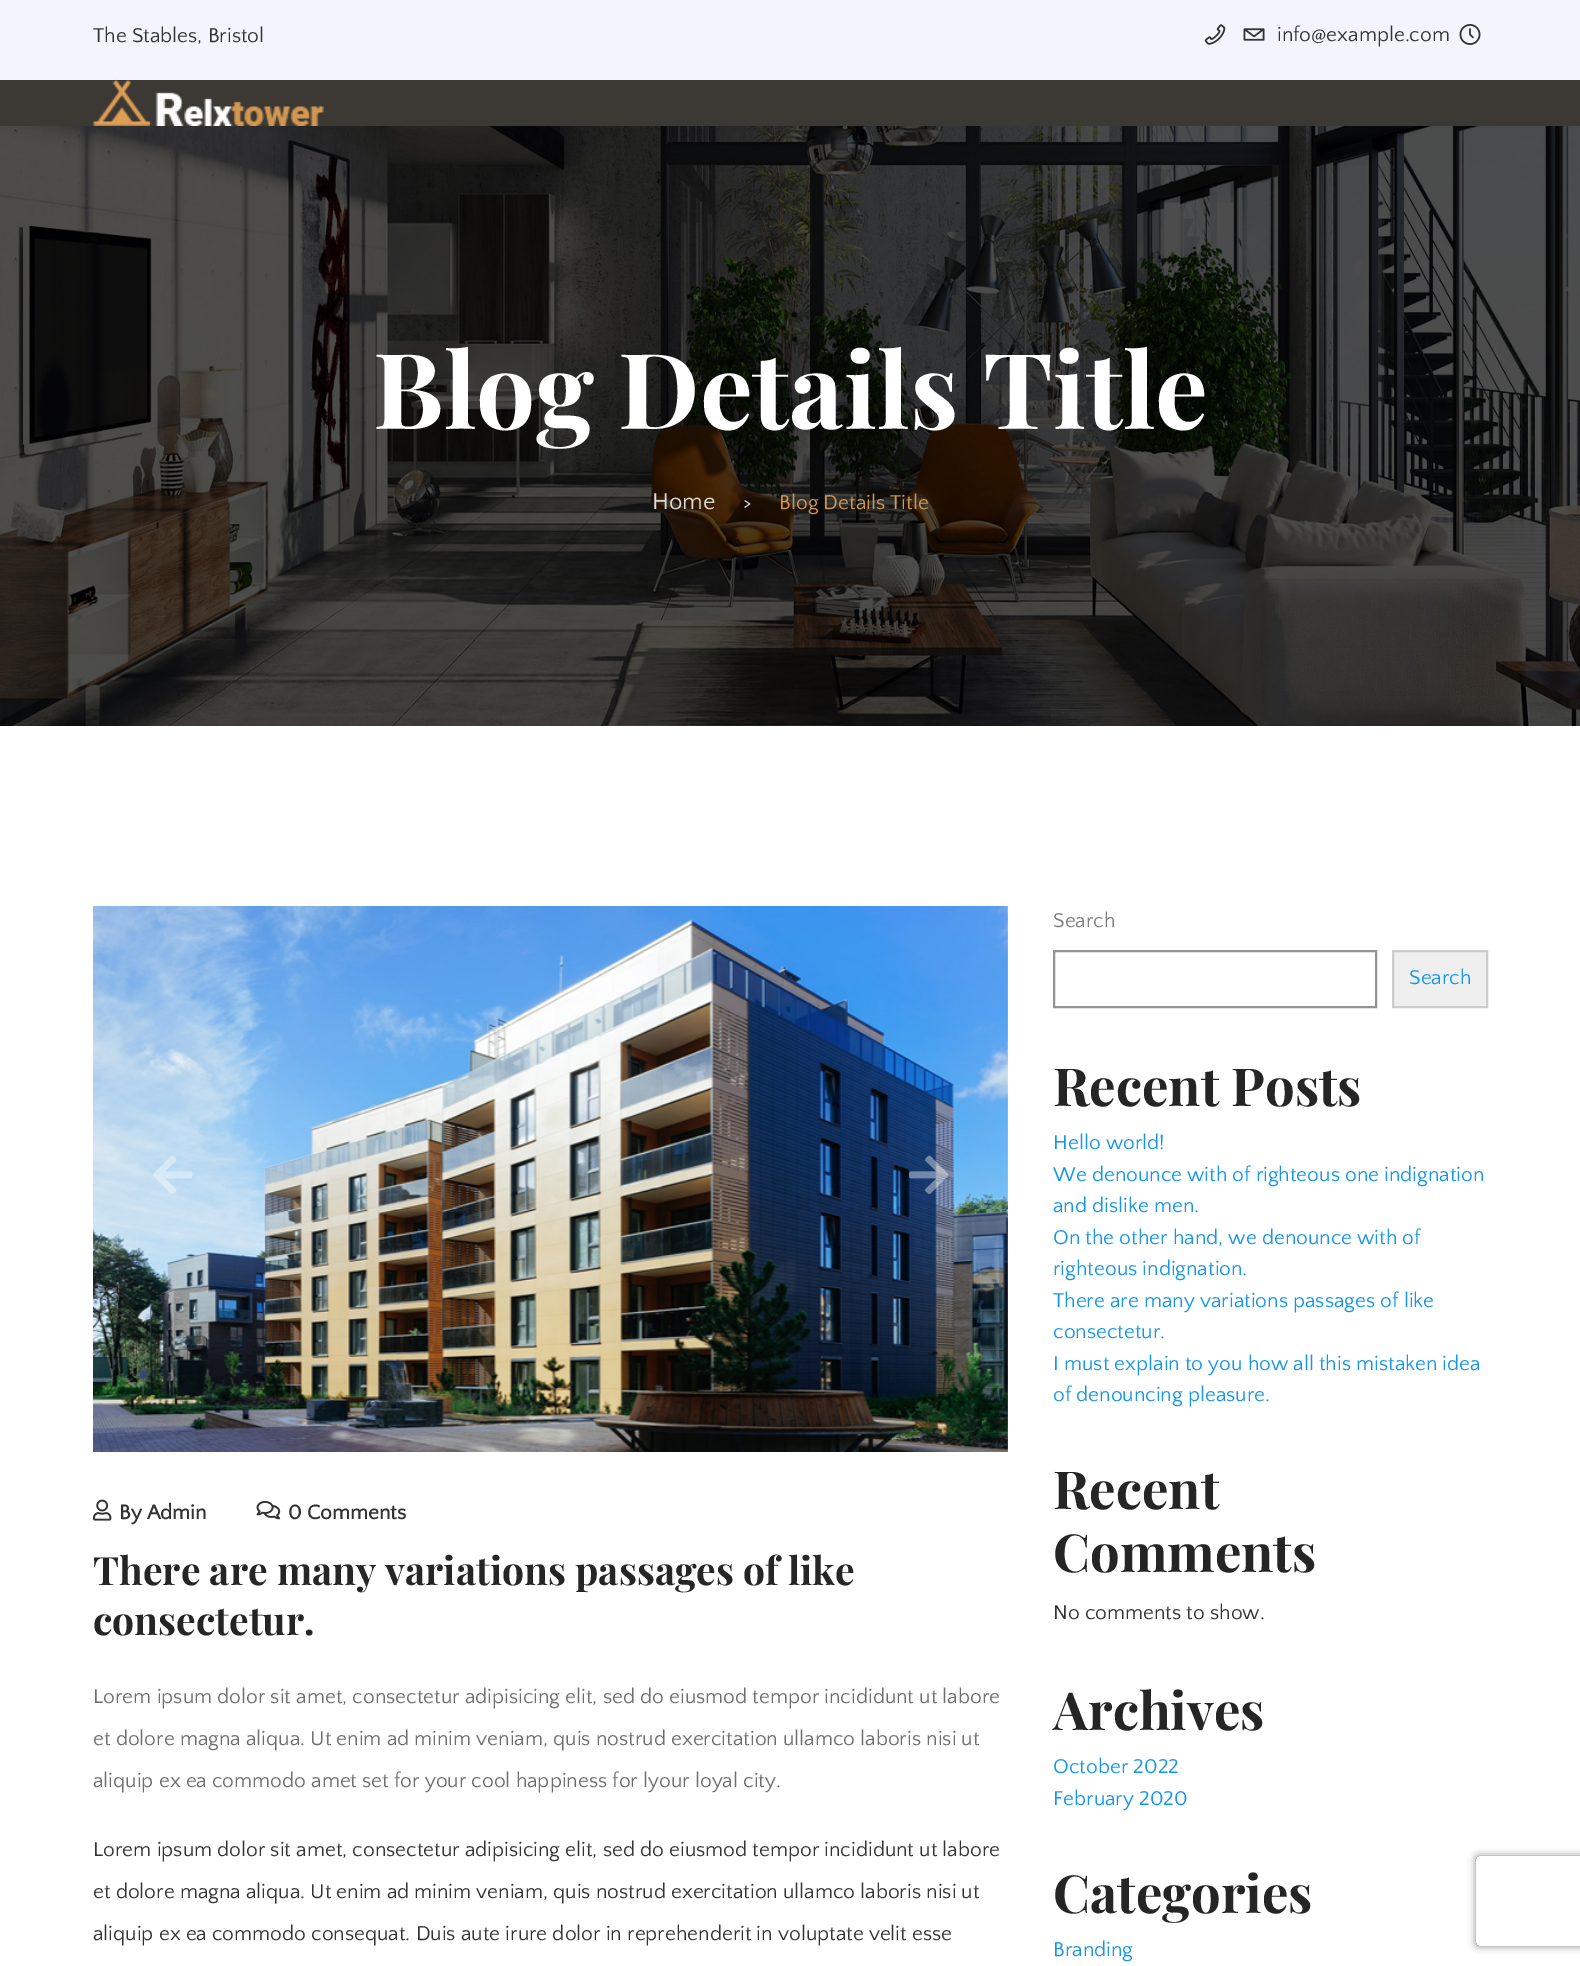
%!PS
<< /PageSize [1580 1966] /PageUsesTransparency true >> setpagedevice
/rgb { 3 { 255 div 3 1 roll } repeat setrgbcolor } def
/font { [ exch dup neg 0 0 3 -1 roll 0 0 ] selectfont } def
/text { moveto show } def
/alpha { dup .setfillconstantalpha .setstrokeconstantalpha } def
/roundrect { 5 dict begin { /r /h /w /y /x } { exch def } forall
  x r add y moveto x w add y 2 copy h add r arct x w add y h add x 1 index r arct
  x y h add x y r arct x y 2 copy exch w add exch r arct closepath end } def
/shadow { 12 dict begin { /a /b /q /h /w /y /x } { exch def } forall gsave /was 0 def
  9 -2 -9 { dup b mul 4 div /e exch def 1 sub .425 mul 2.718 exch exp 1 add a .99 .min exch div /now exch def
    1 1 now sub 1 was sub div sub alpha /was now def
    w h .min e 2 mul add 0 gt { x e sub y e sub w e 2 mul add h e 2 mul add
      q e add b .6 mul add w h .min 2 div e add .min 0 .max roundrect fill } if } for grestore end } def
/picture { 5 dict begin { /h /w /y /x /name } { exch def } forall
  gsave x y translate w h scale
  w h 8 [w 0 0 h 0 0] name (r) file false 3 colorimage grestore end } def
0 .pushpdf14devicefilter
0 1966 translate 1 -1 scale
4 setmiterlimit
255 255 255 rgb
0 0 1580 1966 rectfill
244 244 254 rgb
0 0 1580 80 rectfill
(img_01.rgb) 1204 24 22 21 picture
(img_02.rgb) 1243 28 22 13 picture
(img_03.rgb) 1459 24 22 21 picture
60 57 53 rgb
0 80 1580 46 rectfill
(img_04.rgb) 93 79 231 47 picture
(img_05.rgb) 0 126 1580 600 picture
(img_06.rgb) 93 906 915 546 picture
(img_07.rgb) 153 1155 40 39 picture
(img_08.rgb) 909 1155 40 39 picture
(img_09.rgb) 93 1499 19 22 picture
(img_10.rgb) 256 1500 25 20 picture
148 148 148 rgb
2 setlinewidth
1054 951 322 56 rectstroke
239 239 239 rgb
1393 951 moveto 94 0 rlineto 0 56 rlineto -94 0 rlineto closepath gsave fill grestore
204 204 204 rgb
stroke
gsave
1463 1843 moveto 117 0 rlineto 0 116 rlineto -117 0 rlineto closepath 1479 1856 moveto 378 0 rlineto 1.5 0 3 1.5 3 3 rcurveto 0 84 rlineto 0 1.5 -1.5 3 -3 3 rcurveto -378 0 rlineto -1.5 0 -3 -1.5 -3 -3 rcurveto 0 -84 rlineto 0 -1.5 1.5 -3 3 -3 rcurveto closepath eoclip newpath
128 128 128 rgb
1476 1856 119 90 3 4 1 shadow
grestore
/QuattrocentoSans-Regular 21 font
51 51 51 rgb
(The Stables, Bristol) 93 42 text
(info@example.com) 1277 41 text
/PlayfairDisplay-Bold 105 font
255 255 255 rgb
(Blog Details Title) 373 429 text
/QuattrocentoSans-Regular 24 font
221 221 221 rgb
(Home) 652 509 text
/QuattrocentoSans-Regular 21 font
(>) 743 509 text
210 151 81 rgb
(Blog Details Title) 779 509 text
/QuattrocentoSans-Bold 21 font
51 51 51 rgb
(By Admin) 119 1519 text
(0 Comments) 288 1519 text
/PlayfairDisplay-Bold 39 font
37 37 37 rgb
(There are many variations passages of like) 93 1585 text
(consectetur.) 93 1635 text
/QuattrocentoSans-Regular 21 font
110 110 110 rgb
(Lorem ipsum dolor sit amet, consectetur adipisicing elit, sed do eiusmod tempor incididunt ut labore) 93 1703 text
(et dolore magna aliqua. Ut enim ad minim veniam, quis nostrud exercitation ullamco laboris nisi ut) 93 1745 text
(aliquip ex ea commodo amet set for your cool happiness for lyour loyal city.) 93 1787 text
51 51 51 rgb
(Lorem ipsum dolor sit amet, consectetur adipisicing elit, sed do eiusmod tempor incididunt ut labore) 93 1856 text
(et dolore magna aliqua. Ut enim ad minim veniam, quis nostrud exercitation ullamco laboris nisi ut) 93 1898 text
(aliquip ex ea commodo consequat. Duis aute irure dolor in reprehenderit in voluptate velit esse) 93 1940 text
126 126 126 rgb
(Search) 1053 927 text
22 150 231 rgb
(Search) 1409 984 text
/PlayfairDisplay-Bold 52.5 font
37 37 37 rgb
(Recent Posts) 1053 1106 text
/QuattrocentoSans-Regular 21 font
22 150 231 rgb
(Hello world!) 1053 1149 text
(We denounce with of righteous one indignation) 1053 1181 text
(and dislike men.) 1053 1212 text
(On the other hand, we denounce with of) 1053 1244 text
(righteous indignation.) 1053 1275 text
(There are many variations passages of like) 1053 1307 text
(consectetur.) 1053 1338 text
(I must explain to you how all this mistaken idea) 1053 1370 text
(of denouncing pleasure.) 1053 1401 text
/PlayfairDisplay-Bold 52.5 font
37 37 37 rgb
(Recent) 1053 1509 text
(Comments) 1053 1572 text
/QuattrocentoSans-Regular 21 font
51 51 51 rgb
(No comments to show.) 1053 1619 text
/PlayfairDisplay-Bold 52.5 font
37 37 37 rgb
(Archives) 1053 1730 text
/QuattrocentoSans-Regular 21 font
22 150 231 rgb
(October 2022) 1053 1773 text
(February 2020) 1053 1805 text
/PlayfairDisplay-Bold 52.5 font
37 37 37 rgb
(Categories) 1053 1913 text
/QuattrocentoSans-Regular 21 font
22 150 231 rgb
(Branding) 1053 1956 text
.poppdf14devicefilter showpage
